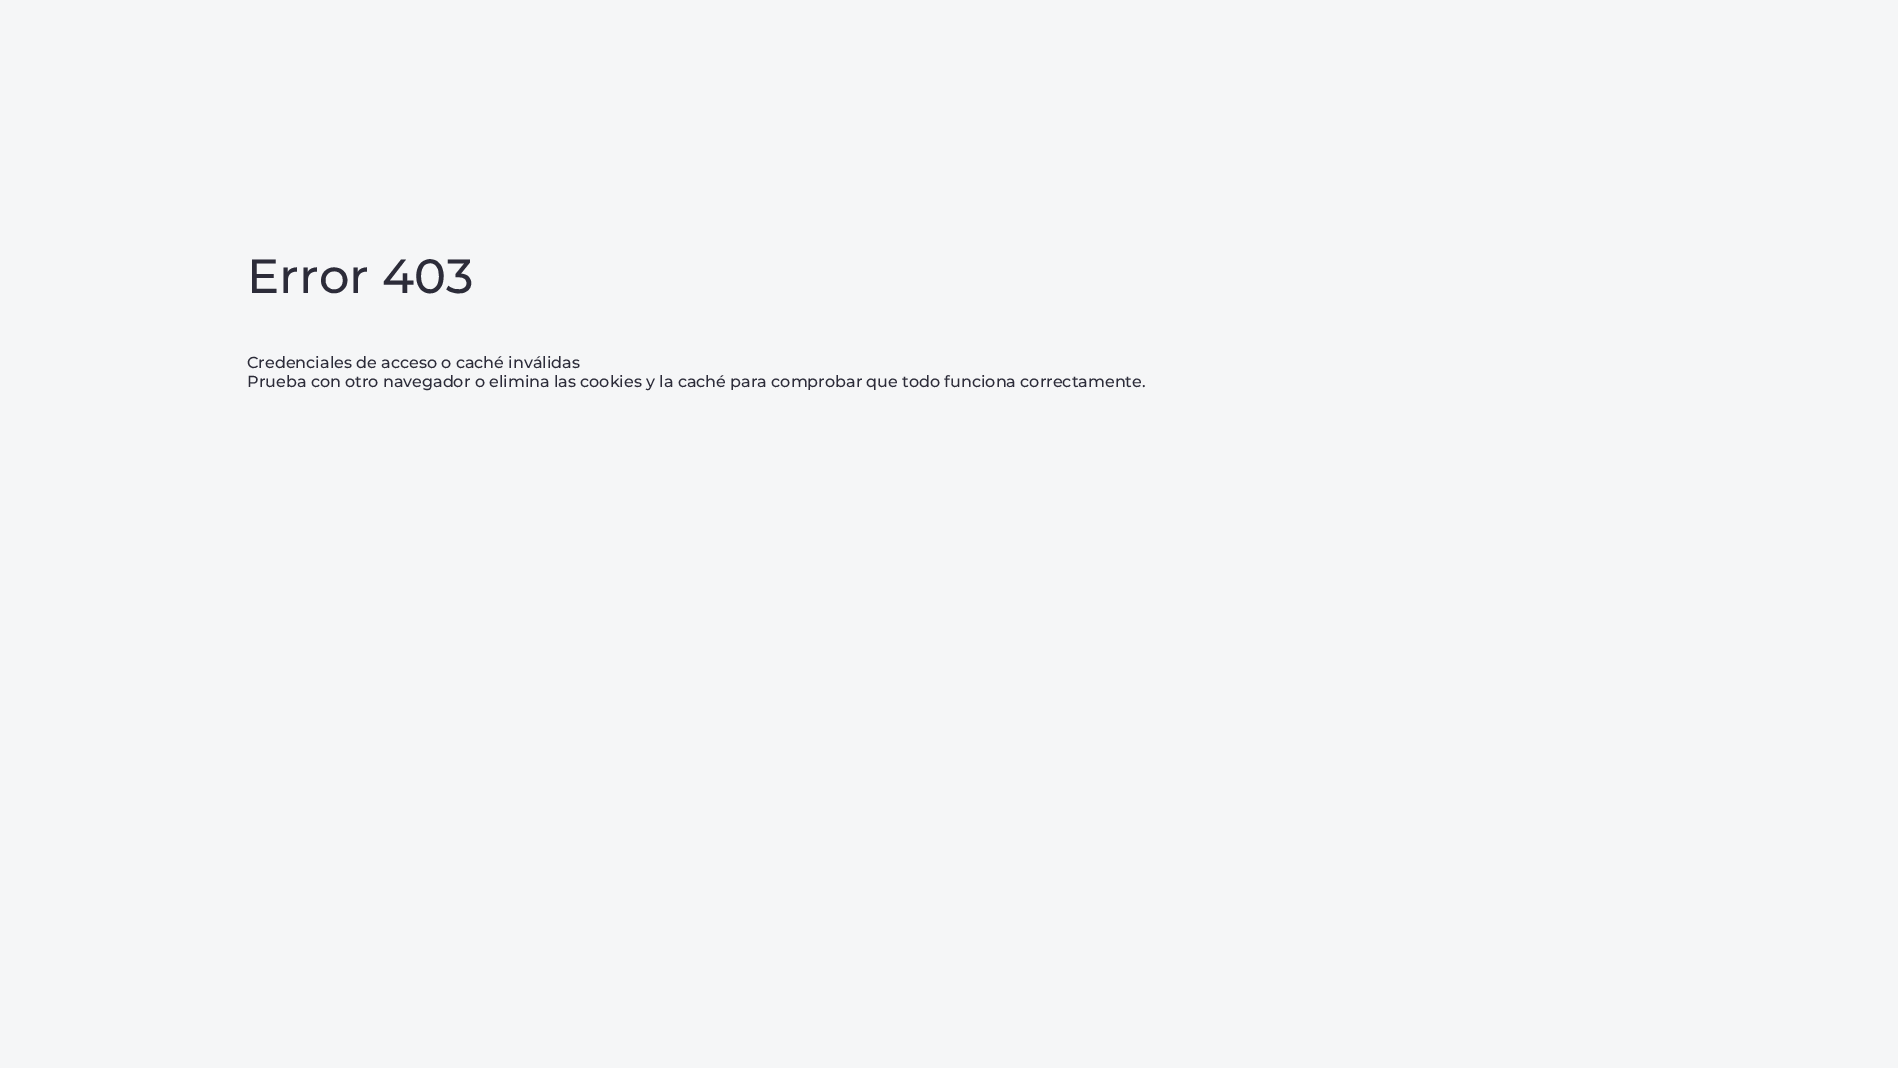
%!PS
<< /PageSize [1898 1068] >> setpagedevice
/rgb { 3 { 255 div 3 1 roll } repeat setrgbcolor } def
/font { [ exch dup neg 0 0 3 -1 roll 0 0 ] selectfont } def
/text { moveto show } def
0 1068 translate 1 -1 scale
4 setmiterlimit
245 246 247 rgb
0 0 1898 1068 rectfill
/Montserrat-Medium 48 font
44 44 57 rgb
(Error 403) 247 293 text
/Montserrat-Medium 16 font
(Credenciales de acceso o caché inválidas) 247 368 text
(Prueba con otro navegador o elimina las cookies y la caché para comprobar que todo funciona correctamente.) 247 387 text
showpage
